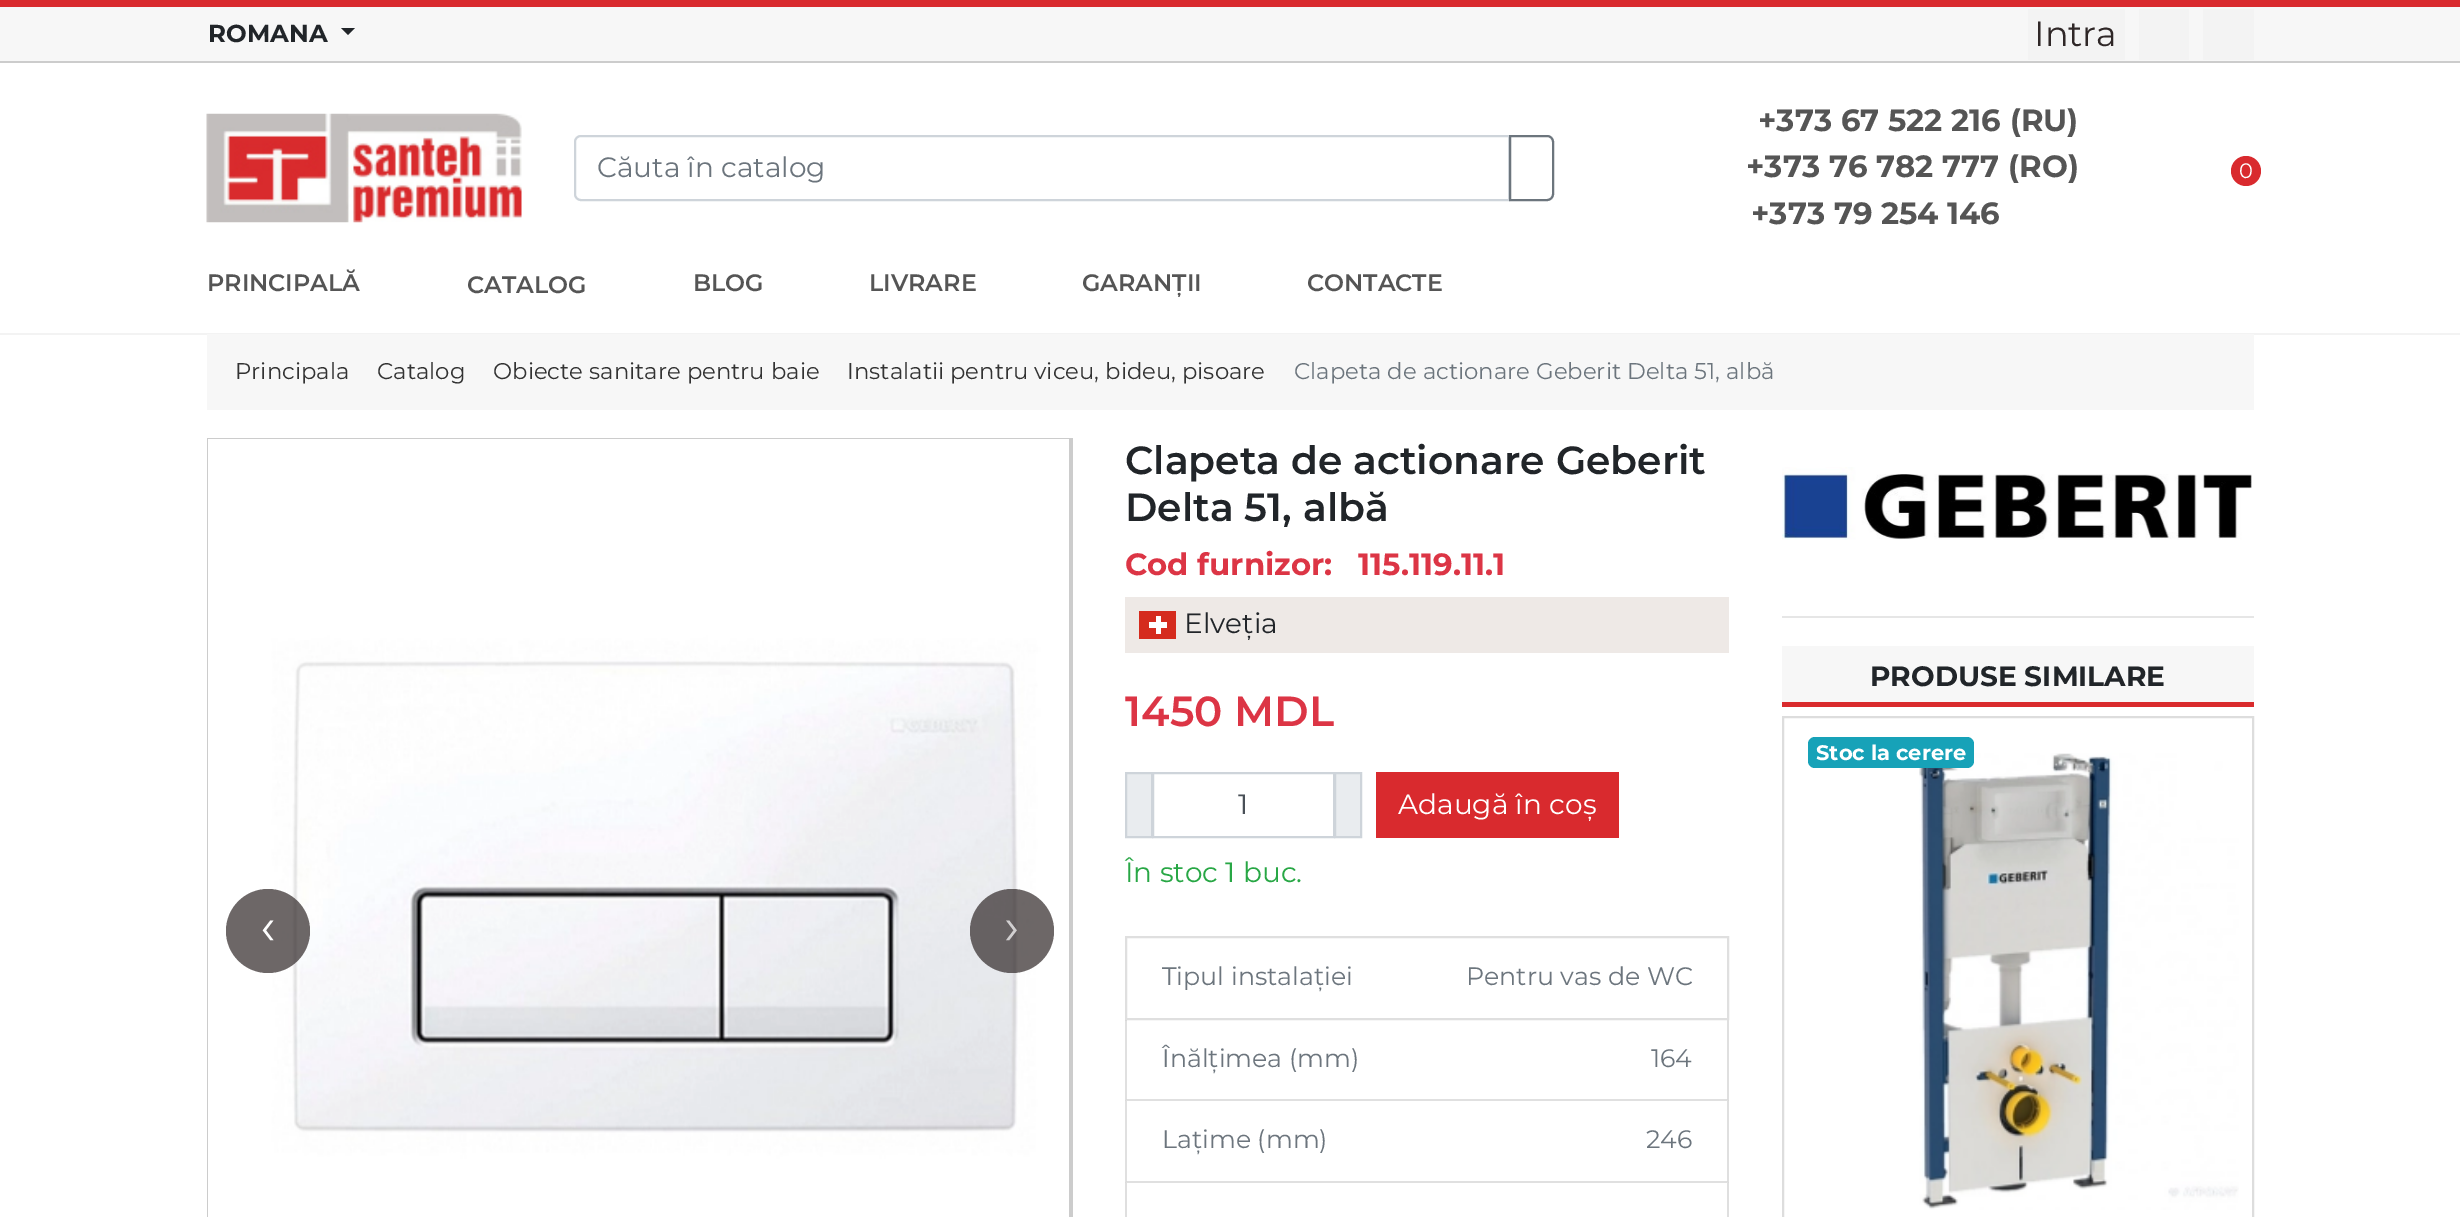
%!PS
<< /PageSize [2460 1217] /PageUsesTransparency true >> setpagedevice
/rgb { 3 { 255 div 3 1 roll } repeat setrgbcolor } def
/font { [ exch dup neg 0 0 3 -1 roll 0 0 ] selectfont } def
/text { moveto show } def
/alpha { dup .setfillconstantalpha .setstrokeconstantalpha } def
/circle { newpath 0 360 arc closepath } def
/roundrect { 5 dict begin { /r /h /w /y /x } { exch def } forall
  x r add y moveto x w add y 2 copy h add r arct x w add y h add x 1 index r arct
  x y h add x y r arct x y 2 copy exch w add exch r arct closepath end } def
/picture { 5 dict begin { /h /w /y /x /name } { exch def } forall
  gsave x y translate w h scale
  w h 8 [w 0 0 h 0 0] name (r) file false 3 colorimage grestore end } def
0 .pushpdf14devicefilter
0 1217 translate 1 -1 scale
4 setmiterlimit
255 255 255 rgb
0 0 2460 1217 rectfill
217 42 46 rgb
0 0 2460 7 rectfill
243 243 243 rgb
0 333 2460 2 rectfill
247 247 247 rgb
0 7 2460 54 rectfill
204 204 204 rgb
0 61 2460 2 rectfill
33 37 41 rgb
341 28 moveto 14 0 rlineto -7 7 rlineto closepath fill
243 243 243 rgb
2028 9 97 51 rectfill
2139 9 50 51 rectfill
2203 9 51 51 rectfill
(img_01.rgb) 206 113 316 110 picture
206 212 218 rgb
2 setlinewidth
581 136 moveto 928 0 rlineto 0 64 rlineto -928 0 rlineto -3.5 0 -6 -2.5 -6 -6 rcurveto 0 -52 rlineto 0 -3.5 2.5 -6 6 -6 rcurveto closepath stroke
108 117 125 rgb
1510 136 moveto 37 0 rlineto 3.5 0 6 2.5 6 6 rcurveto 0 52 rlineto 0 3.5 -2.5 6 -6 6 rcurveto -37 0 rlineto closepath stroke
217 42 46 rgb
2246 171 15 circle fill
247 247 247 rgb
207 334 2047 76 rectfill
204 204 204 rgb
207 438 866 779 rectfill
(img_02.rgb) 208 439 861 778 picture
0.7 alpha
47 39 39 rgb
268 931 42 circle fill
1012 931 42 circle fill
1 alpha
238 233 230 rgb
1125 597 604 56 rectfill
213 43 30 rgb
1139 611 37 28 rectfill
255 255 255 rgb
1149 622 18 6 rectfill
1156 616 5 18 rectfill
233 236 239 rgb
1126 773 moveto 26 0 rlineto 0 64 rlineto -26 0 rlineto closepath gsave fill grestore
206 212 218 rgb
stroke
233 236 239 rgb
1335 773 moveto 26 0 rlineto 0 64 rlineto -26 0 rlineto closepath gsave fill grestore
206 212 218 rgb
stroke
1153 773 181 64 rectstroke
217 42 46 rgb
1376 772 243 66 rectfill
223 223 223 rgb
1126 937 602 82 rectstroke
1729 1020 moveto 0 81 rlineto -2 -2 rlineto 0 -79 rlineto closepath fill
0.12 alpha
0 0 0 rgb
1729 1101 moveto -604 0 rlineto 2 -2 rlineto 600 0 rlineto closepath fill
1125 1101 moveto 0 -81 rlineto 2 0 rlineto 0 79 rlineto closepath fill
1 alpha
223 223 223 rgb
1729 1101 moveto 0 82 rlineto -2 -2 rlineto 0 -80 rlineto closepath fill
0.12 alpha
0 0 0 rgb
1729 1183 moveto -604 0 rlineto 2 -2 rlineto 600 0 rlineto closepath fill
1125 1183 moveto 0 -82 rlineto 2 0 rlineto 0 80 rlineto closepath fill
1 alpha
223 223 223 rgb
1729 1183 moveto 0 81 rlineto -2 -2 rlineto 0 -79 rlineto closepath fill
1125 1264 moveto 0 -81 rlineto 2 0 rlineto 0 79 rlineto closepath fill
(img_03.rgb) 1782 467 470 73 picture
230 230 230 rgb
1782 616 472 2 rectfill
247 247 247 rgb
1782 646 472 56 rectfill
217 43 45 rgb
1782 702 472 5 rectfill
221 221 221 rgb
1783 717 470 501 rectstroke
(img_04.rgb) 1919 753 320 457 picture
23 162 184 rgb
1808 737 166 31 7 roundrect fill
/Montserrat-Bold 24.5 font
33 37 41 rgb
(ROMANA) 208 42 text
/Montserrat-Regular 35 font
47 39 39 rgb
(Intra) 2034 46 text
/Montserrat-Regular 28 font
108 117 125 rgb
(Căuta în catalog) 597 177 text
/Montserrat-Bold 30.75 font
85 85 85 rgb
(+373 67 522 216 \(RU\)) 1758 131 text
(+373 76 782 777 \(RO\)) 1746 177 text
(+373 79 254 146) 1751 224 text
/Montserrat-Regular 21 font
255 255 255 rgb
(0) 2239 178 text
/Montserrat-SemiBold 23.75 font
85 85 85 rgb
(PRINCIPALĂ) 207 291 text
(CATALOG) 467 293 text
(BLOG) 693 291 text
(LIVRARE) 869 291 text
(GARANȚII) 1082 291 text
(CONTACTE) 1307 291 text
/Montserrat-Regular 22.75 font
51 51 51 rgb
(Principala) 235 379 text
(Catalog) 377 379 text
(Obiecte sanitare pentru baie) 493 379 text
(Instalatii pentru viceu, bideu, pisoare) 847 379 text
108 117 125 rgb
(Clapeta de actionare Geberit Delta 51, albă) 1294 379 text
/Montserrat-Regular 52 font
255 255 255 rgb
(‹) 260 944 text
209 207 208 rgb
(›) 1004 944 text
/Montserrat-SemiBold 39.25 font
33 37 41 rgb
(Clapeta de actionare Geberit) 1125 474 text
(Delta 51, albă) 1125 521 text
/Montserrat-Bold 30.75 font
220 53 69 rgb
(Cod furnizor:   115.119.11.1) 1125 575 text
/Montserrat-Regular 28 font
33 37 41 rgb
(Elveția) 1184 633 text
/Montserrat-SemiBold 42 font
220 53 69 rgb
(1450 MDL) 1125 726 text
/Montserrat-Regular 28 font
73 80 87 rgb
(1) 1238 814 text
255 255 255 rgb
(Adaugă în coș) 1398 814 text
40 167 69 rgb
(În stoc 1 buc.) 1125 882 text
/Montserrat-Regular 25.25 font
108 117 125 rgb
(Tipul instalației) 1162 985 text
(Pentru vas de WC) 1466 985 text
(Înălțimea \(mm\)) 1162 1067 text
(164) 1651 1067 text
(Lațime \(mm\)) 1162 1148 text
(246) 1646 1148 text
/Montserrat-Bold 28 font
33 37 41 rgb
(PRODUSE SIMILARE) 1870 686 text
/Montserrat-Bold 21 font
255 255 255 rgb
(Stoc la cerere) 1816 760 text
.poppdf14devicefilter showpage
